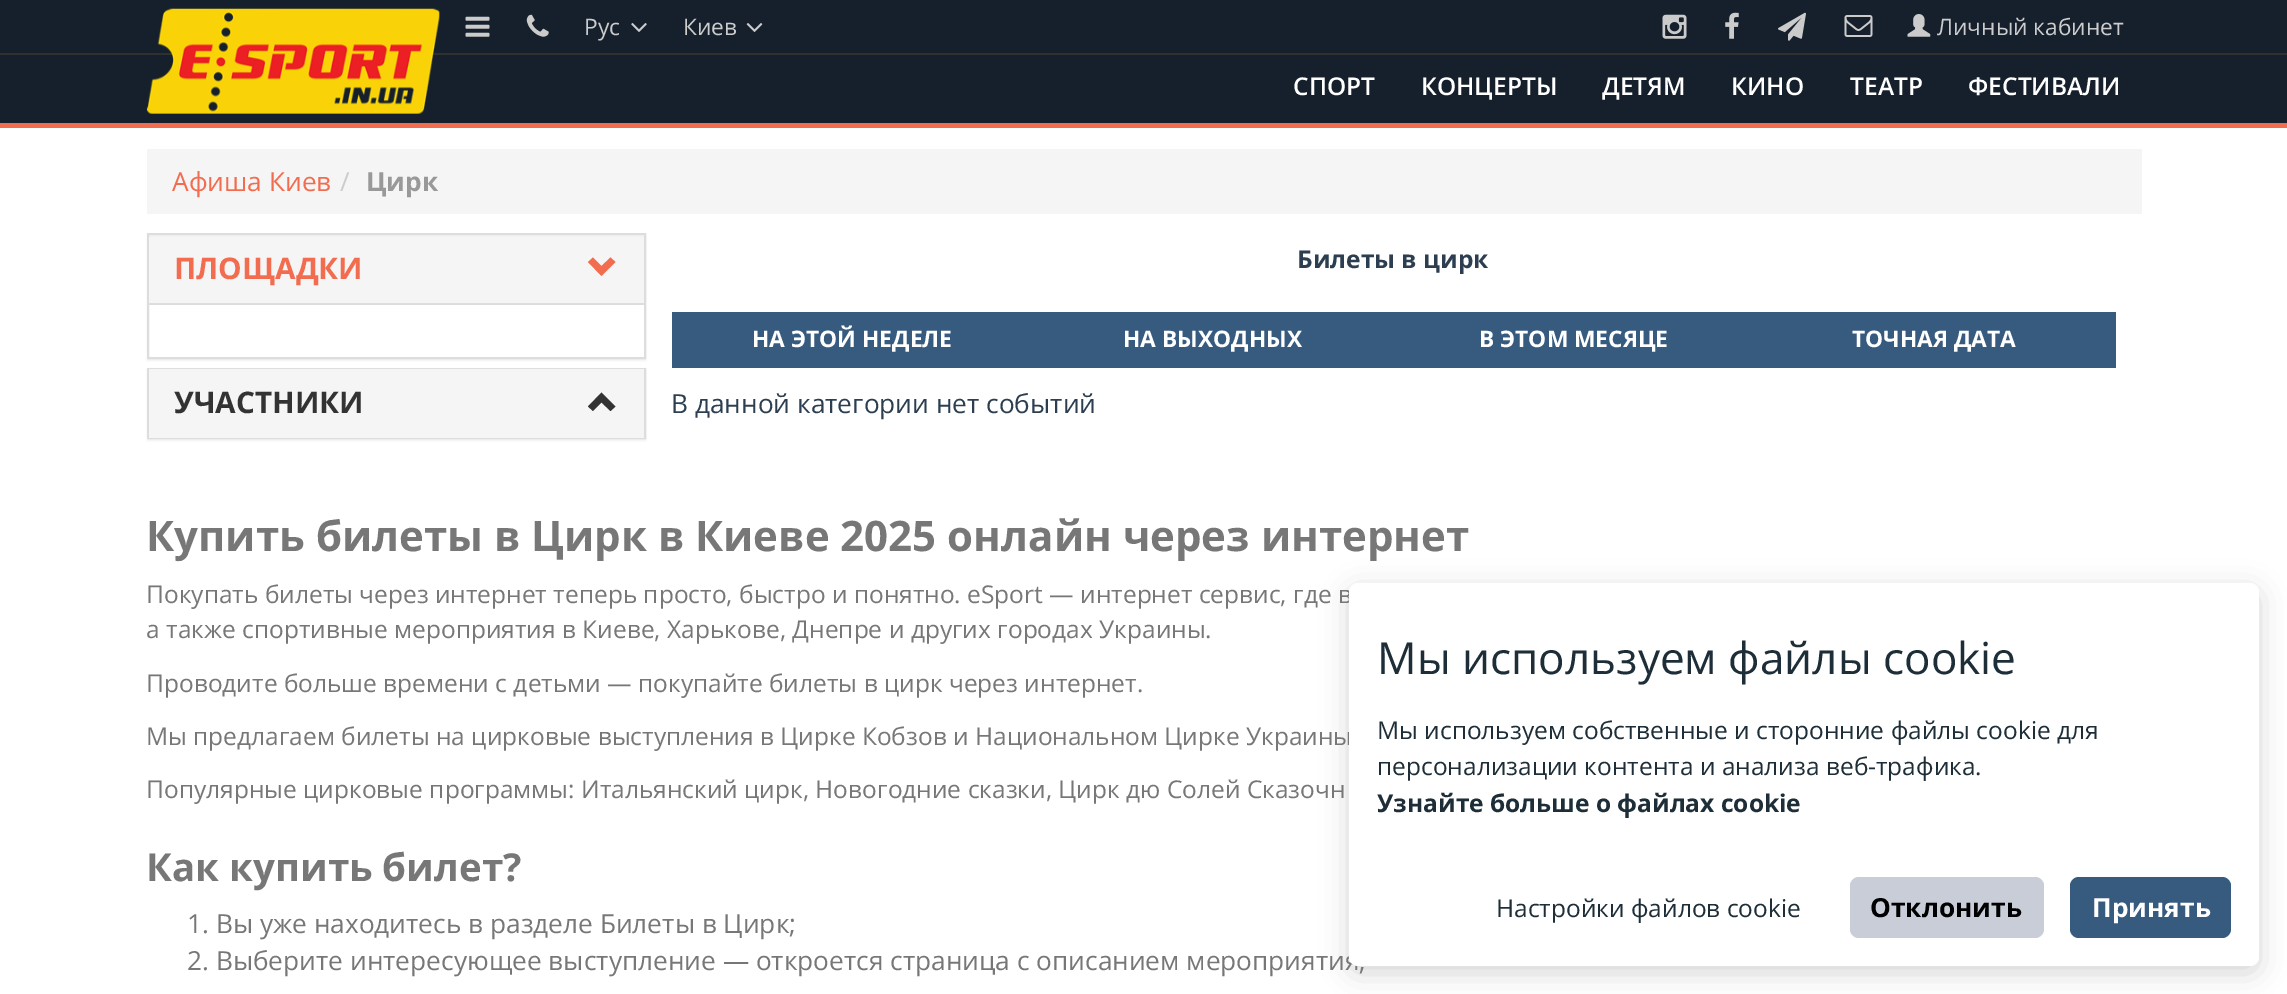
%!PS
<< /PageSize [2287 994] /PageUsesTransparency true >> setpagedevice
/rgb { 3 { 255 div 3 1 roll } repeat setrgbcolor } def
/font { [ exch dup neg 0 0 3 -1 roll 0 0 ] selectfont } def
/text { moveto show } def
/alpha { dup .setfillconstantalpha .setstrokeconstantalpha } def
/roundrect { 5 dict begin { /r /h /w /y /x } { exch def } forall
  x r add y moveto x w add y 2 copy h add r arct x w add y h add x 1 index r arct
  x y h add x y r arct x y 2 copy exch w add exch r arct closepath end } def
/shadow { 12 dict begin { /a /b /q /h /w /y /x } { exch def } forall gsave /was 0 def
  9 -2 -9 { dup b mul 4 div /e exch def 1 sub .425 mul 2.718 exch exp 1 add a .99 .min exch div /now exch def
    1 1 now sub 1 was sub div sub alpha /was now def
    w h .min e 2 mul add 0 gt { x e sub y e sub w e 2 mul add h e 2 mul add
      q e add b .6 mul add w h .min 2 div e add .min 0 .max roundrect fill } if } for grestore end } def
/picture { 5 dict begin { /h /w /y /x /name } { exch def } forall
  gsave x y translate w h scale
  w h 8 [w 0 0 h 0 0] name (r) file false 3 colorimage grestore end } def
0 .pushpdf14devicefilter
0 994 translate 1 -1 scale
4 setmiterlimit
255 255 255 rgb
0 0 2287 994 rectfill
22 32 45 rgb
0 0 2287 53 rectfill
48 48 48 rgb
0 53 2287 2 rectfill
22 32 45 rgb
0 55 2287 68 rectfill
(img_01.rgb) 146 8 294 106 picture
(img_02.rgb) 465 16 25 21 picture
(img_03.rgb) 526 14 23 23 picture
(img_04.rgb) 631 23 16 9 picture
(img_05.rgb) 746 23 17 9 picture
(img_06.rgb) 1662 14 25 25 picture
(img_07.rgb) 1725 12 14 27 picture
(img_08.rgb) 1778 12 28 29 picture
(img_09.rgb) 1844 15 29 22 picture
(img_10.rgb) 1907 14 24 23 picture
242 108 79 rgb
0 123 2287 5 rectfill
245 245 245 rgb
147 149 1995 65 rectfill
0 0 0 rgb
147 235 499 126 0 1 0.05 shadow
255 255 255 rgb
149 305 495 52 rectfill
221 221 221 rgb
2 setlinewidth
148 234 497 124 rectstroke
245 245 245 rgb
149 237 495 66 rectfill
242 108 79 rgb
615.5 262 moveto -14 14 rlineto -13.5 -14 rlineto 5 -4.5 rlineto 8.5 8.5 rlineto 9 -8.5 rlineto closepath fill
221 221 221 rgb
149 303 495 2 rectfill
0 0 0 rgb
147 369 499 72 0 1 0.05 shadow
221 221 221 rgb
148 369 497 69 rectstroke
245 245 245 rgb
149 369 495 69 rectfill
51 51 51 rgb
615.5 406.5 moveto -5 4.5 rlineto -9 -8.5 rlineto -8.5 8.5 rlineto -5 -4.5 rlineto 13.5 -14 rlineto closepath fill
55 90 127 rgb
672 312 1444 56 rectfill
0 0 0 rgb
1349 590 910 383 9 14 0.16 shadow
/OpenSans-Regular 22.75 font
204 204 204 rgb
(Рус) 584 35 text
(Киев) 683 35 text
(Личный кабинет) 1937 35 text
/OpenSans-SemiBold 24.5 font
255 255 255 rgb
(СПОРТ) 1293 95 text
(КОНЦЕРТЫ) 1421 95 text
(ДЕТЯМ) 1602 95 text
(КИНО) 1731 95 text
(ТЕАТР) 1850 95 text
(ФЕСТИВАЛИ) 1968 95 text
/OpenSans-Regular 26.25 font
242 108 79 rgb
(Афиша Киев) 172 191 text
204 204 204 rgb
(/) 340 191 text
/OpenSans-Bold 26.25 font
153 153 153 rgb
(Цирк) 366 191 text
/OpenSans-Bold 29.75 font
242 108 79 rgb
(ПЛОЩАДКИ) 174 279 text
51 51 51 rgb
(УЧАСТНИКИ) 174 413 text
/OpenSans-Bold 24.5 font
44 62 80 rgb
(Билеты в цирк) 1297 268 text
/OpenSans-Bold 22.75 font
255 255 255 rgb
(НА ЭТОЙ НЕДЕЛЕ) 752 347 text
(НА ВЫХОДНЫХ) 1123 347 text
(В ЭТОМ МЕСЯЦЕ) 1479 347 text
(ТОЧНАЯ ДАТА) 1852 347 text
/OpenSans-Regular 26.25 font
44 62 80 rgb
(В данной категории нет событий) 671 413 text
/OpenSans-Bold 42 font
119 119 119 rgb
(Купить билеты в Цирк в Киеве 2025 онлайн через интернет) 146 551 text
/OpenSans-Regular 24.5 font
(Покупать билеты через интернет теперь просто, быстро и понятно. eSport — интернет сервис, где в) 146 603 text
(а также спортивные мероприятия в Киеве, Харькове, Днепре и других городах Украины.) 146 638 text
(Проводите больше времени с детьми — покупайте билеты в цирк через интернет.) 146 692 text
(Мы предлагаем билеты на цирковые выступления в Цирке Кобзов и Национальном Цирке Украины) 146 745 text
(Популярные цирковые программы: Итальянский цирк, Новогодние сказки, Цирк дю Солей Сказочн) 146 798 text
/OpenSans-Bold 38.5 font
(Как купить билет?) 146 881 text
/OpenSans-Regular 26.25 font
(1. Вы уже находитесь в разделе Билеты в Цирк;) 187 933 text
(2. Выберите интересующее выступление — откроется страница с описанием мероприятия;) 187 970 text
255 255 255 rgb
1349 583 910 383 9 roundrect fill
/OpenSans-Regular 44.1 font
29 46 56 rgb
(Мы используем файлы cookie) 1377 674 text
/OpenSans-Regular 24.5 font
(Мы используем собственные и сторонние файлы cookie для) 1377 739 text
(персонализации контента и анализа веб-трафика.) 1377 775 text
/OpenSans-Bold 24.5 font
(Узнайте больше о файлах cookie) 1377 812 text
/OpenSans-Regular 24.5 font
(Настройки файлов cookie) 1496 917 text
200 205 216 rgb
1850 877 194 61 9 roundrect fill
/OpenSans-Bold 26.25 font
0 0 0 rgb
(Отклонить) 1870 917 text
55 90 127 rgb
2070 877 161 61 9 roundrect fill
255 255 255 rgb
(Принять) 2092 917 text
.poppdf14devicefilter showpage
